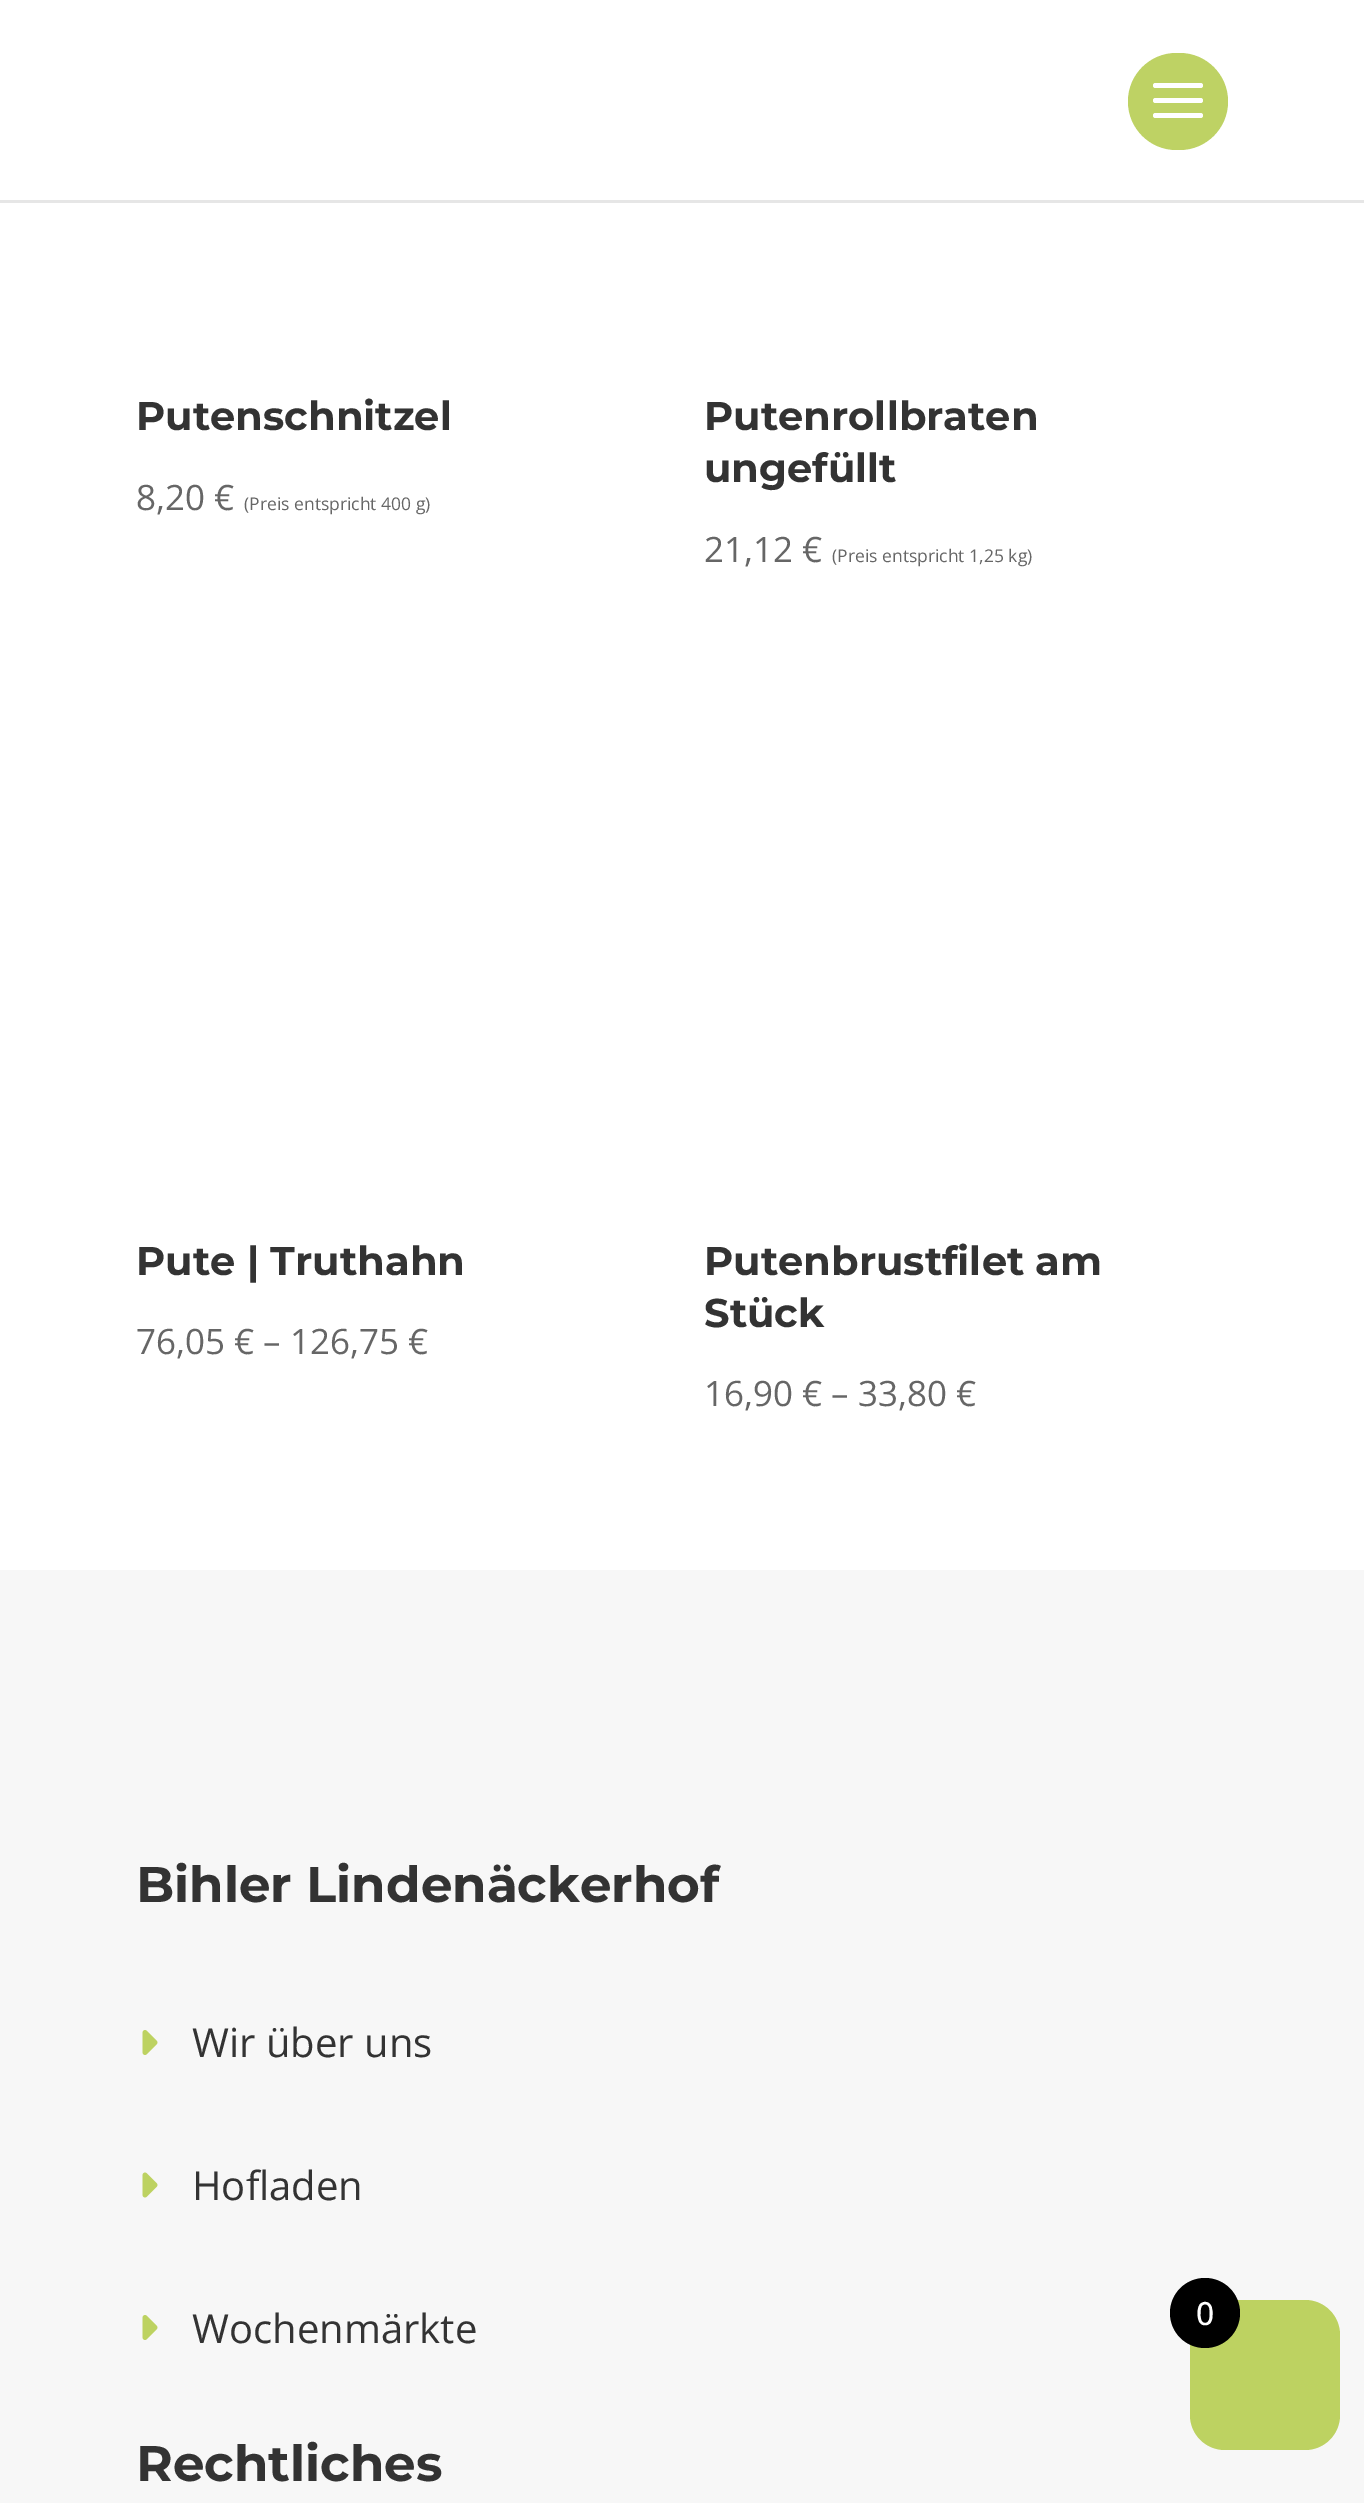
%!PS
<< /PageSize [1364 2503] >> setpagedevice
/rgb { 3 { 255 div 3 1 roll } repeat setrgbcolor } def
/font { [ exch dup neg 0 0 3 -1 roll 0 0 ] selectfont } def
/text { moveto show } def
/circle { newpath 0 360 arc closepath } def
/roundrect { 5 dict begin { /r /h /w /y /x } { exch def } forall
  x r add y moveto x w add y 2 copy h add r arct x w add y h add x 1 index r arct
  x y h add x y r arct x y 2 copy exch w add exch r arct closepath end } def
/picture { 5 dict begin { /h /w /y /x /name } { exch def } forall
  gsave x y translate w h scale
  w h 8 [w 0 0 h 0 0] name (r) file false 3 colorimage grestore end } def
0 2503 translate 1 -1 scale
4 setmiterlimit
255 255 255 rgb
0 0 1364 2503 rectfill
230 230 230 rgb
0 200 1364 3 rectfill
190 210 100 rgb
1128 53 100 97 48.5 roundrect fill
255 255 255 rgb
1153 83 50 5 2.5 roundrect fill
1153 98 50 5 2.5 roundrect fill
1153 113 50 5 2.5 roundrect fill
247 247 247 rgb
0 1570 1364 933 rectfill
(img_01.rgb) 142 2030 16 25 picture
(img_02.rgb) 142 2172 16 26 picture
(img_01.rgb) 142 2315 16 25 picture
189 210 97 rgb
1190 2300 150 150 35 roundrect fill
0 0 0 rgb
1205 2313 35 circle fill
/Montserrat-Bold 40 font
51 51 51 rgb
(Putenschnitzel) 136 430 text
/OpenSans-Regular 35 font
102 102 102 rgb
(8,20 €) 136 510 text
/OpenSans-Regular 17.5 font
(\(Preis entspricht 400 g\)) 244 510 text
/Montserrat-Bold 40 font
51 51 51 rgb
(Putenrollbraten) 704 430 text
(ungefüllt) 704 482 text
/OpenSans-Regular 35 font
102 102 102 rgb
(21,12 €) 704 562 text
/OpenSans-Regular 17.5 font
(\(Preis entspricht 1,25 kg\)) 832 562 text
/Montserrat-Bold 40 font
51 51 51 rgb
(Pute | Truthahn) 136 1275 text
/OpenSans-Regular 35 font
102 102 102 rgb
(76,05 € – 126,75 €) 136 1354 text
/Montserrat-Bold 40 font
51 51 51 rgb
(Putenbrustfilet am) 704 1275 text
(Stück) 704 1327 text
/OpenSans-Regular 35 font
102 102 102 rgb
(16,90 € – 33,80 €) 704 1406 text
/Montserrat-Bold 50 font
51 51 51 rgb
(Bihler Lindenäckerhof) 136 1902 text
/OpenSans-Regular 40 font
(Wir über uns) 192 2057 text
(Hofladen) 192 2200 text
(Wochenmärkte) 192 2343 text
/Montserrat-Bold 50 font
(Rechtliches) 136 2481 text
/OpenSans-Medium 32 font
255 255 255 rgb
(0) 1196 2325 text
showpage
